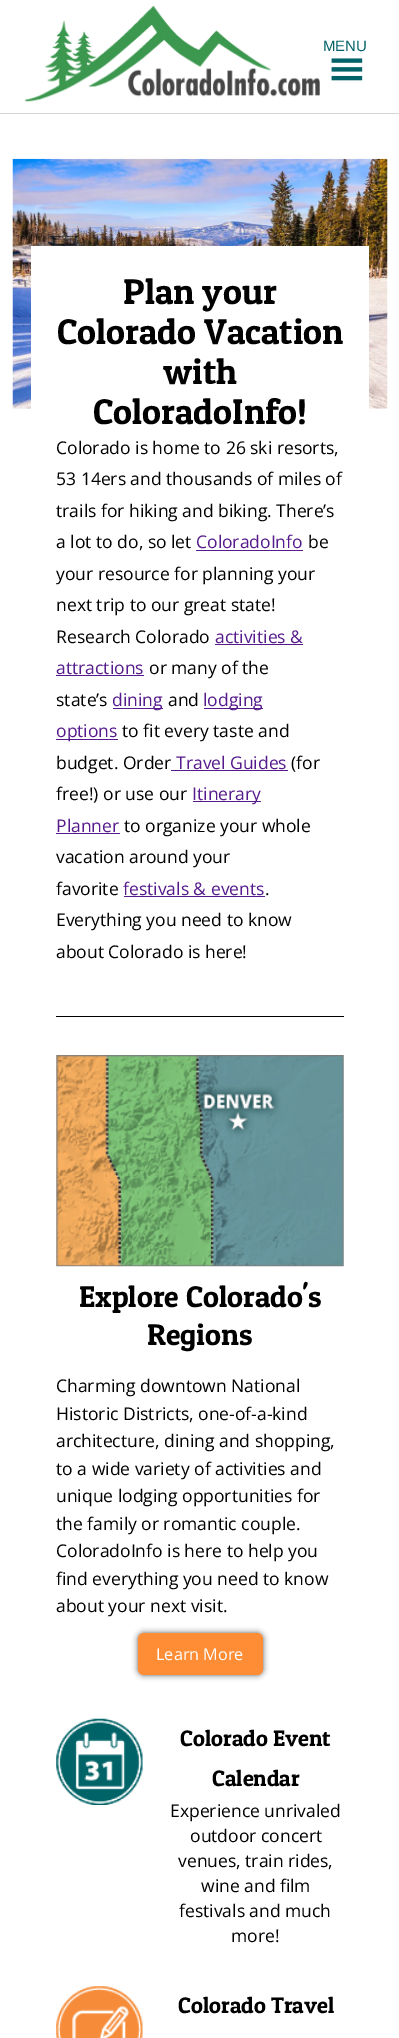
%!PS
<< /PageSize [399 2038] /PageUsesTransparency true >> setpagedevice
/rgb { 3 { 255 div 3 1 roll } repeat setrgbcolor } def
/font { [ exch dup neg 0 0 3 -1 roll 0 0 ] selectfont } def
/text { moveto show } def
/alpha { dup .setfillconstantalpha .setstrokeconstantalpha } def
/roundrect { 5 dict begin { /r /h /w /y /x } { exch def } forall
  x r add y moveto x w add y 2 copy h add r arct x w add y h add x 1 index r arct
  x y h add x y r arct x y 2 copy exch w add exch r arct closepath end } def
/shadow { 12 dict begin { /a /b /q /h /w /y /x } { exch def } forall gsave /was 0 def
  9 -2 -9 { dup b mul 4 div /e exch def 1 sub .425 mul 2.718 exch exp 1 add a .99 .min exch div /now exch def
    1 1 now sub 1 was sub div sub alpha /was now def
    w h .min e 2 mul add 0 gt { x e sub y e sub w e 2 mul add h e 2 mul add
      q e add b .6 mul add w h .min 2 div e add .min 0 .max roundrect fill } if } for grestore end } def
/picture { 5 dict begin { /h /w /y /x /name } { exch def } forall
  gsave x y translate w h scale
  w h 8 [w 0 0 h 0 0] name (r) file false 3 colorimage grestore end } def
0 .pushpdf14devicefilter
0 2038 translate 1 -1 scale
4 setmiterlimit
255 255 255 rgb
0 0 399 2038 rectfill
212 212 212 rgb
0 113 399 1 rectfill
(img_01.rgb) 25 6 295 96 picture
(img_02.rgb) 331 58 32 23 picture
(img_03.rgb) 12 158 376 251 picture
255 255 255 rgb
31 246 338 163 rectfill
85 26 139 rgb
196 550 107 1 rectfill
215 644 88 1 rectfill
56 675 88 1 rectfill
113 708 50 1 rectfill
204 708 59 1 rectfill
56 739 62 1 rectfill
193 801 68 1 rectfill
56 833 64 1 rectfill
124 896 141 1 rectfill
0 0 0 rgb
56 1016 288 1 rectfill
(img_04.rgb) 56 1055 288 212 picture
138 1633 125 42 6 3 0.65 shadow
255 141 53 rgb
138 1633 125 42 6 roundrect fill
(img_05.rgb) 56 1718 87 87 picture
(img_06.rgb) 56 1986 87 52 picture
/LiberationSans-Regular 15 font
1 98 104 rgb
(MENU) 323 51 text
/PatuaOne-Regular 35.75 font
0 0 0 rgb
(Plan your) 123 304 text
(Colorado Vacation) 57 344 text
(with) 163 384 text
(ColoradoInfo!) 93 424 text
/OpenSans-Regular 17.5 font
(Colorado is home to 26 ski resorts,) 56 454 text
(53 14ers and thousands of miles of) 56 485 text
(trails for hiking and biking. There’s) 56 517 text
(a lot to do, so let) 56 548 text
85 26 139 rgb
(ColoradoInfo) 196 548 text
0 0 0 rgb
(be) 308 548 text
(your resource for planning your) 56 580 text
(next trip to our great state!) 56 611 text
(Research Colorado) 56 643 text
85 26 139 rgb
(activities &) 215 643 text
(attractions) 56 674 text
0 0 0 rgb
(or many of the) 149 674 text
(state’s) 56 706 text
85 26 139 rgb
(dining) 112 706 text
0 0 0 rgb
(and) 168 706 text
85 26 139 rgb
(lodging) 203 706 text
(options) 56 737 text
0 0 0 rgb
(to fit every taste and) 122 737 text
(budget. Order) 56 769 text
85 26 139 rgb
(Travel Guides) 176 769 text
171 770 117 1 rectfill
0 0 0 rgb
(\(for) 291 769 text
(free!\) or use our) 56 800 text
85 26 139 rgb
(Itinerary) 192 800 text
(Planner) 56 832 text
0 0 0 rgb
(to organize your whole) 124 832 text
(vacation around your) 56 863 text
(favorite) 56 895 text
85 26 139 rgb
(festivals & events) 123 895 text
0 0 0 rgb
(.) 265 895 text
(Everything you need to know) 56 926 text
(about Colorado is here!) 56 958 text
/PatuaOne-Regular 30 font
(Explore Colorado's) 79 1307 text
(Regions) 147 1345 text
/OpenSans-Regular 17.5 font
(Charming downtown National) 56 1392 text
(Historic Districts, one-of-a-kind) 56 1420 text
(architecture, dining and shopping,) 56 1447 text
(to a wide variety of activities and) 56 1475 text
(unique lodging opportunities for) 56 1502 text
(the family or romantic couple.) 56 1530 text
(ColoradoInfo is here to help you) 56 1557 text
(find everything you need to know) 56 1585 text
(about your next visit.) 56 1612 text
/OpenSans-Regular 16.25 font
255 255 255 rgb
(Learn More) 156 1660 text
/PatuaOne-Regular 22.5 font
0 0 0 rgb
(Colorado Event) 180 1746 text
(Calendar) 212 1786 text
/OpenSans-Regular 17.5 font
(Experience unrivaled) 170 1817 text
(outdoor concert) 190 1842 text
(venues, train rides,) 178 1867 text
(wine and film) 201 1892 text
(festivals and much) 179 1917 text
(more!) 231 1942 text
/PatuaOne-Regular 22.5 font
(Colorado Travel) 178 2013 text
.poppdf14devicefilter showpage
